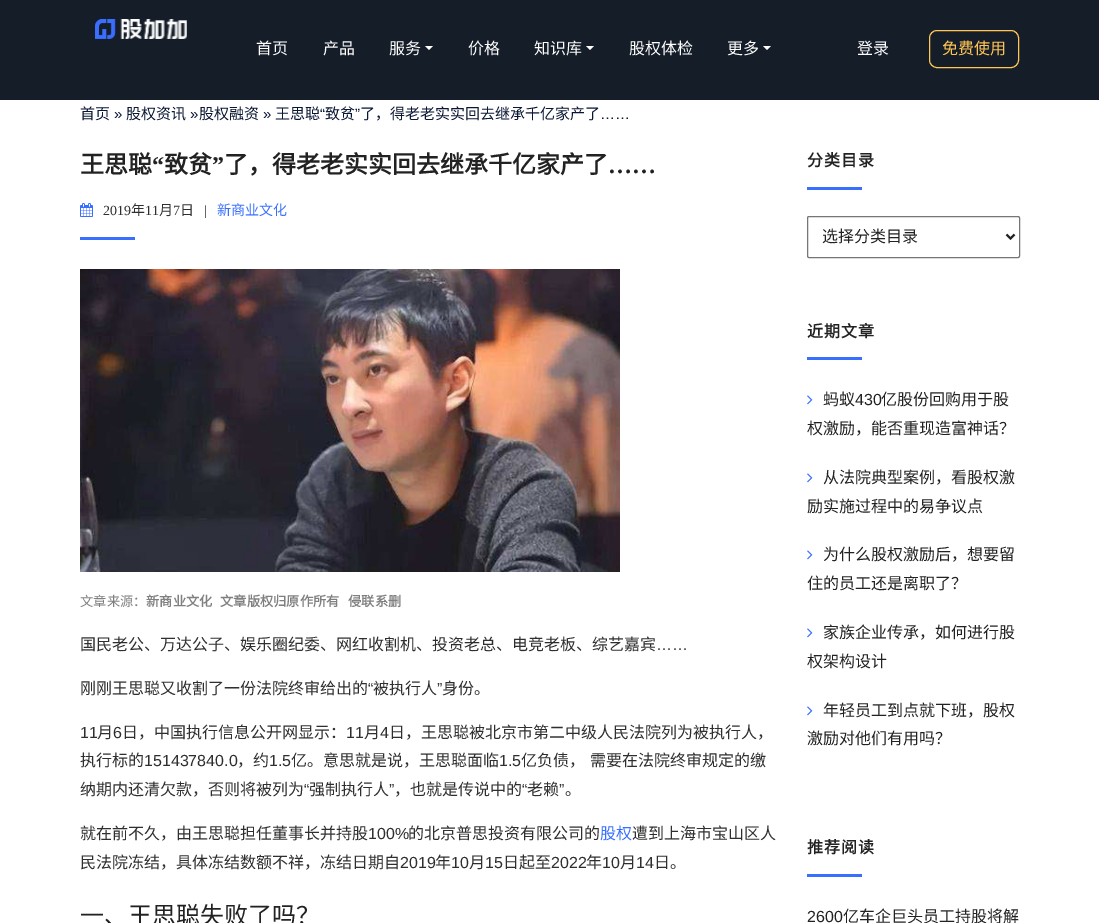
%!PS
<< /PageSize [1099 923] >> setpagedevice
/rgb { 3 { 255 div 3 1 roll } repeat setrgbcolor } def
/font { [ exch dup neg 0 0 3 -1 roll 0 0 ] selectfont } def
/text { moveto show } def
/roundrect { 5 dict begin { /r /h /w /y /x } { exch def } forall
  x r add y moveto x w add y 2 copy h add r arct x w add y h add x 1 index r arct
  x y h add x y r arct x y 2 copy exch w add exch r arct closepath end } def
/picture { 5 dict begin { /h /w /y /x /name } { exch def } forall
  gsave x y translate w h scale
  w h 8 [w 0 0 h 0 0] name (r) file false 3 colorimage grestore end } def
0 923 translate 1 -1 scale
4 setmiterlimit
255 255 255 rgb
0 0 1099 923 rectfill
21 29 41 rgb
0 0 1099 100 rectfill
(img_01.rgb) 95 19 92 20 picture
255 255 255 rgb
425 46 moveto 8 0 rlineto -4 4 rlineto closepath fill
586 46 moveto 8 0 rlineto -4 4 rlineto closepath fill
763 46 moveto 8 0 rlineto -4 4 rlineto closepath fill
255 197 85 rgb
929.5 30.5 89 37 7.5 roundrect stroke
(img_02.rgb) 80 203 13 14 picture
57 111 255 rgb
80 237 55 3 rectfill
(img_03.rgb) 80 269 540 303 picture
807 187 55 3 rectfill
118 118 118 rgb
807.5 216.5 212 41 1.5 roundrect stroke
34 34 34 rgb
2 setlinewidth
1006.5 234.5 moveto 4 4 rlineto 4 -4 rlineto stroke
57 111 255 rgb
807 357 55 3 rectfill
(img_04.rgb) 807 395 6 10 picture
(img_04.rgb) 807 473 6 10 picture
(img_04.rgb) 807 550 6 10 picture
(img_04.rgb) 807 628 6 10 picture
(img_04.rgb) 807 706 6 10 picture
807 874 55 3 rectfill
/NotoSansCJKSC-Regular 16 font
255 255 255 rgb
(首页) 256 54 text
(产品) 323 54 text
(服务) 389 54 text
(价格) 468 54 text
(知识库) 534 54 text
(股权体检) 629 54 text
(更多) 727 54 text
(登录) 857 54 text
255 197 85 rgb
(免费使用) 942 54 text
/NotoSansCJKSC-Regular 15 font
10 22 51 rgb
(首页) 80 119 text
(股权资讯) 126 119 text
(股权融资) 199 119 text
(王思聪) 275 119 text
/LiberationSans-Regular 15 font
(“) 320 119 text
/NotoSansCJKSC-Regular 15 font
(致贫) 325 119 text
/LiberationSans-Regular 15 font
(”) 355 119 text
/NotoSansCJKSC-Regular 15 font
(了，得老老实实回去继承千亿家产了) 360 119 text
/LiberationSans-Regular 15 font
(») 114 119 text
(») 190 119 text
(») 263 119 text
(……) 600 119 text
/NotoSansCJKSC-Bold 24 font
34 34 34 rgb
(王思聪) 80 173 text
/LiberationSerif-Bold 24 font
(“) 152 173 text
/NotoSansCJKSC-Bold 24 font
(致贫) 164 173 text
/LiberationSerif-Bold 24 font
(”) 212 173 text
/NotoSansCJKSC-Bold 24 font
(了，得老老实实回去继承千亿家产了) 224 173 text
/LiberationSerif-Bold 24 font
(……) 608 173 text
/LiberationSerif-Regular 14 font
47 47 47 rgb
(2019) 103 215 text
/NotoSansCJKSC-Regular 14 font
(年) 131 215 text
/LiberationSerif-Regular 14 font
(11) 145 215 text
/NotoSansCJKSC-Regular 14 font
(月) 159 215 text
/LiberationSerif-Regular 14 font
(7) 173 215 text
/NotoSansCJKSC-Regular 14 font
(日) 180 215 text
/LiberationSerif-Regular 14 font
(|) 204 215 text
/NotoSansCJKSC-Regular 14 font
57 111 255 rgb
(新商业文化) 217 215 text
/NotoSansCJKSC-Regular 13.25 font
128 128 128 rgb
(文章来源：) 80 606 text
/NotoSansCJKSC-Bold 13.25 font
(新商业文化) 146 606 text
(文章版权归原作所有) 220 606 text
(侵联系删) 348 606 text
/NotoSansCJKSC-Regular 16 font
47 47 47 rgb
(国民老公、万达公子、娱乐圈纪委、网红收割机、投资老总、电竞老板、综艺嘉宾) 80 650 text
/LiberationSans-Regular 16 font
(……) 656 650 text
/NotoSansCJKSC-Regular 16 font
(刚刚王思聪又收割了一份法院终审给出的) 80 694 text
/LiberationSans-Regular 16 font
(“) 368 694 text
/NotoSansCJKSC-Regular 16 font
(被执行人) 373 694 text
/LiberationSans-Regular 16 font
(”) 437 694 text
/NotoSansCJKSC-Regular 16 font
(身份。) 442 694 text
/LiberationSans-Regular 16 font
(11) 80 738 text
/NotoSansCJKSC-Regular 16 font
(月) 97 738 text
/LiberationSans-Regular 16 font
(6) 113 738 text
/NotoSansCJKSC-Regular 16 font
(日，中国执行信息公开网显示：) 122 738 text
/LiberationSans-Regular 16 font
(11) 346 738 text
/NotoSansCJKSC-Regular 16 font
(月) 364 738 text
/LiberationSans-Regular 16 font
(4) 380 738 text
/NotoSansCJKSC-Regular 16 font
(日，王思聪被北京市第二中级人民法院列为被执行人，) 389 738 text
(执行标的) 80 766 text
/LiberationSans-Regular 16 font
(151437840.0) 144 766 text
/NotoSansCJKSC-Regular 16 font
(，约) 237 766 text
/LiberationSans-Regular 16 font
(1.5) 269 766 text
/NotoSansCJKSC-Regular 16 font
(亿。意思就是说，王思聪面临) 291 766 text
/LiberationSans-Regular 16 font
(1.5) 499 766 text
/NotoSansCJKSC-Regular 16 font
521 766 moveto 1 0 32 (亿负债， 需要在法院终审规定的缴) widthshow
(纳期内还清欠款，否则将被列为) 80 795 text
/LiberationSans-Regular 16 font
(“) 304 795 text
/NotoSansCJKSC-Regular 16 font
(强制执行人) 309 795 text
/LiberationSans-Regular 16 font
(”) 389 795 text
/NotoSansCJKSC-Regular 16 font
(，也就是传说中的) 394 795 text
/LiberationSans-Regular 16 font
(“) 522 795 text
/NotoSansCJKSC-Regular 16 font
(老赖) 527 795 text
/LiberationSans-Regular 16 font
(”) 559 795 text
/NotoSansCJKSC-Regular 16 font
(。) 565 795 text
(就在前不久，由王思聪担任董事长并持股) 80 839 text
/LiberationSans-Regular 16 font
(100%) 368 839 text
/NotoSansCJKSC-Regular 16 font
(的北京普思投资有限公司的) 408 839 text
57 111 255 rgb
(股权) 600 839 text
47 47 47 rgb
(遭到上海市宝山区人) 632 839 text
(民法院冻结，具体冻结数额不祥，冻结日期自) 80 868 text
/LiberationSans-Regular 16 font
(2019) 400 868 text
/NotoSansCJKSC-Regular 16 font
(年) 435 868 text
/LiberationSans-Regular 16 font
(10) 451 868 text
/NotoSansCJKSC-Regular 16 font
(月) 469 868 text
/LiberationSans-Regular 16 font
(15) 485 868 text
/NotoSansCJKSC-Regular 16 font
(日起至) 503 868 text
/LiberationSans-Regular 16 font
(2022) 551 868 text
/NotoSansCJKSC-Regular 16 font
(年) 586 868 text
/LiberationSans-Regular 16 font
(10) 602 868 text
/NotoSansCJKSC-Regular 16 font
(月) 620 868 text
/LiberationSans-Regular 16 font
(14) 636 868 text
/NotoSansCJKSC-Regular 16 font
(日。) 654 868 text
/NotoSansCJKSC-Regular 24 font
34 34 34 rgb
(一、王思聪失败了吗？) 80 924 text
/NotoSansCJKSC-Bold 16 font
807 166 moveto 1 0 (分类目录) ashow
/NotoSansCJKSC-Regular 16 font
(选择分类目录) 822 242 text
/NotoSansCJKSC-Bold 16 font
807 337 moveto 1 0 (近期文章) ashow
/NotoSansCJKSC-Regular 16 font
(蚂蚁) 823 405 text
/LiberationSans-Regular 16 font
(430) 855 405 text
/NotoSansCJKSC-Regular 16 font
(亿股份回购用于股) 881 405 text
(权激励，能否重现造富神话？) 807 434 text
(从法院典型案例，看股权激) 823 483 text
(励实施过程中的易争议点) 807 512 text
(为什么股权激励后，想要留) 823 560 text
(住的员工还是离职了？) 807 589 text
(家族企业传承，如何进行股) 823 638 text
(权架构设计) 807 667 text
(年轻员工到点就下班，股权) 823 716 text
(激励对他们有用吗？) 807 744 text
/NotoSansCJKSC-Bold 16 font
807 853 moveto 1 0 (推荐阅读) ashow
/LiberationSans-Regular 16 font
(2600) 807 922 text
/NotoSansCJKSC-Regular 16 font
(亿车企巨头员工持股将解) 843 922 text
showpage
